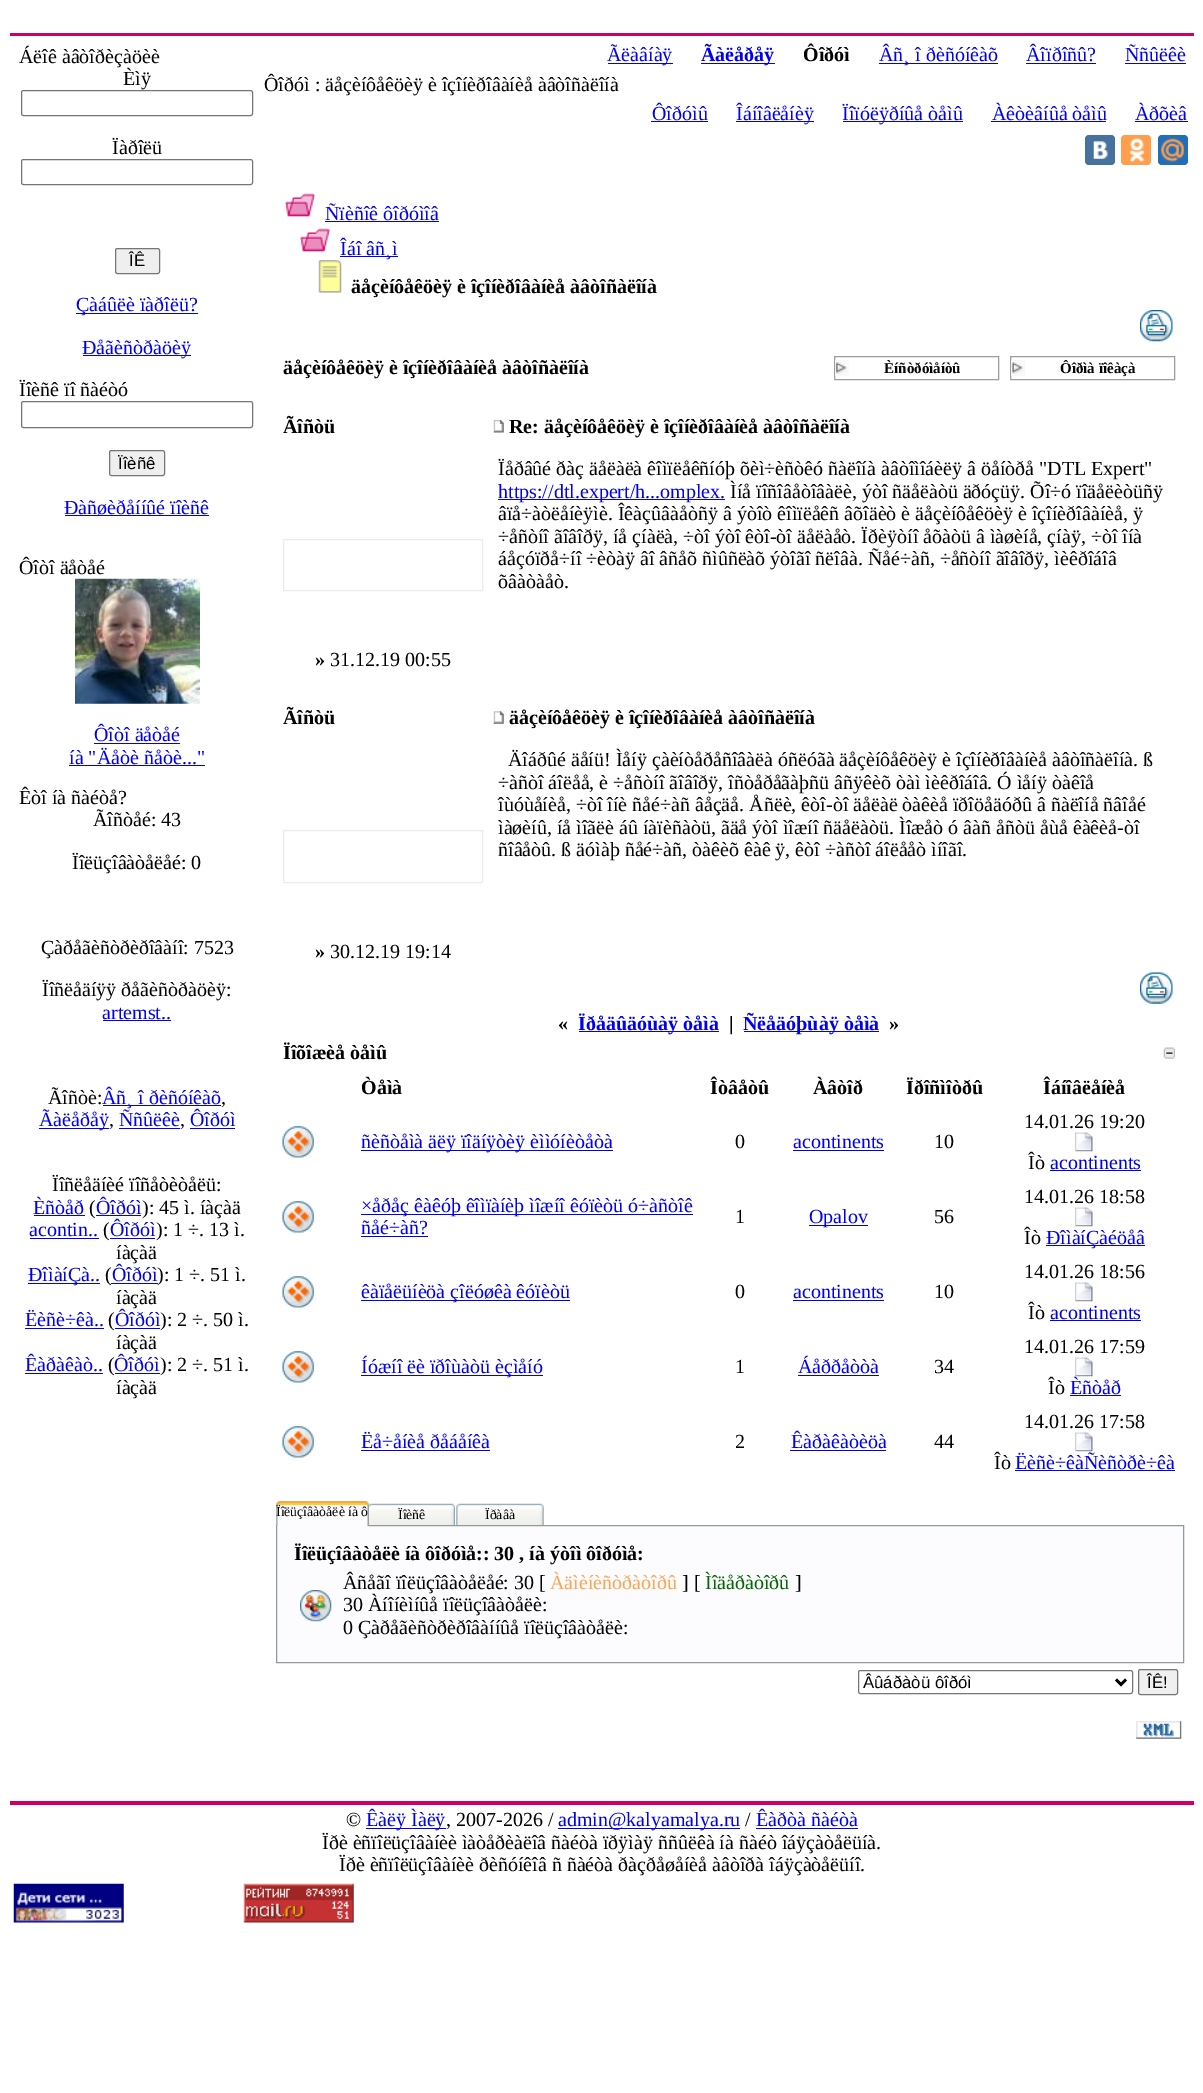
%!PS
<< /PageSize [1203 2093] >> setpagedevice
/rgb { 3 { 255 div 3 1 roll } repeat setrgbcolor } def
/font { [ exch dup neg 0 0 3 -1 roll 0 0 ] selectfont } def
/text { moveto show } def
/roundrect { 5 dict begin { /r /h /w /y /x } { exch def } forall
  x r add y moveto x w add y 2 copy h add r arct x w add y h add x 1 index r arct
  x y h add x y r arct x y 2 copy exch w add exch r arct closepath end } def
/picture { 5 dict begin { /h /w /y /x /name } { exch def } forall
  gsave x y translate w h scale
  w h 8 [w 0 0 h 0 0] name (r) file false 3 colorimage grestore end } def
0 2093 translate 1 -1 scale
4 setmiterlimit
255 255 255 rgb
0 0 1203 2093 rectfill
204 0 102 rgb
10 33 1184 3 rectfill
118 118 118 rgb
21.5 90.5 231 25 2 roundrect stroke
21.5 159.5 231 25 2 roundrect stroke
239 239 239 rgb
115.5 248.5 44 25 2 roundrect gsave fill grestore
118 118 118 rgb
stroke
0 0 238 rgb
76 313 122 1 rectfill
83 355 108 1 rectfill
118 118 118 rgb
21.5 401.5 231 26 2 roundrect stroke
239 239 239 rgb
109.5 450.5 55 25 2 roundrect gsave fill grestore
118 118 118 rgb
stroke
0 0 238 rgb
65 515 144 1 rectfill
(img_01.rgb) 75 578 125 126 picture
94 743 86 1 rectfill
69 765 136 1 rectfill
103 1020 68 1 rectfill
103 1105 118 1 rectfill
39 1128 70 1 rectfill
119 1128 61 1 rectfill
190 1128 45 1 rectfill
34 1215 51 1 rectfill
96 1215 45 1 rectfill
30 1238 69 1 rectfill
110 1238 45 1 rectfill
28 1283 72 1 rectfill
111 1283 47 1 rectfill
25 1328 79 1 rectfill
115 1328 45 1 rectfill
25 1373 78 1 rectfill
115 1373 45 1 rectfill
608 63 65 1 rectfill
701 63 74 1 rectfill
879 63 119 1 rectfill
1026 63 70 1 rectfill
1125 63 61 1 rectfill
651 121 57 1 rectfill
736 121 78 1 rectfill
843 121 120 1 rectfill
991 121 115 1 rectfill
1135 121 53 1 rectfill
72 114 158 rgb
1085 135 30 30 4 roundrect fill
(img_02.rgb) 1093 141 15 18 picture
255 159 77 rgb
1121 135 30 30 4 roundrect fill
(img_03.rgb) 1129 138 15 24 picture
34 110 183 rgb
1158 135 30 30 4 roundrect fill
(img_04.rgb) 1161 138 23 24 picture
(img_05.rgb) 285 193 30 24 picture
0 0 238 rgb
325 221 114 1 rectfill
(img_06.rgb) 300 228 30 24 picture
340 256 58 1 rectfill
(img_07.rgb) 318 260 24 33 picture
(img_08.rgb) 1140 310 33 32 picture
157 157 161 rgb
834.5 356.5 164 23 rectstroke
(img_09.rgb) 835 360 14 16 picture
1010.5 356.5 164 23 rectstroke
(img_10.rgb) 1011 360 14 16 picture
(img_11.rgb) 493 420 11 13 picture
236 236 236 rgb
283.5 539.5 199 51 rectstroke
0 0 238 rgb
498 499 227 1 rectfill
(img_12.rgb) 493 711 11 13 picture
236 236 236 rgb
283.5 830.5 199 52 rectstroke
(img_13.rgb) 1140 972 33 32 picture
0 0 238 rgb
579 1031 140 1 rectfill
744 1031 135 1 rectfill
(img_14.rgb) 1163 1047 12 12 picture
(img_15.rgb) 282 1126 32 32 picture
361 1150 252 1 rectfill
793 1150 91 1 rectfill
(img_16.rgb) 1075 1132 18 20 picture
1050 1170 91 1 rectfill
(img_15.rgb) 282 1201 32 32 picture
361 1214 332 1 rectfill
361 1236 67 1 rectfill
809 1225 59 1 rectfill
(img_16.rgb) 1075 1207 18 20 picture
1046 1245 99 1 rectfill
(img_15.rgb) 282 1276 32 32 picture
361 1300 209 1 rectfill
793 1300 91 1 rectfill
(img_16.rgb) 1075 1282 18 20 picture
1050 1320 91 1 rectfill
(img_15.rgb) 282 1351 32 32 picture
361 1375 182 1 rectfill
798 1375 81 1 rectfill
(img_16.rgb) 1075 1357 18 20 picture
1070 1395 51 1 rectfill
(img_15.rgb) 282 1426 32 32 picture
361 1450 129 1 rectfill
790 1450 96 1 rectfill
(img_16.rgb) 1075 1432 18 20 picture
1015 1470 160 1 rectfill
(img_18.rgb) 368 1503 87 22 picture
252 252 254 rgb
276.5 1525.5 moveto 907 0 rlineto 0 137 rlineto -907 0 rlineto closepath gsave fill grestore
145 155 156 rgb
stroke
(img_17.rgb) 276 1501 93 26 picture
(img_19.rgb) 456 1503 88 22 picture
(img_20.rgb) 300 1590 32 32 picture
118 118 118 rgb
858.5 1670.5 274 23 2 roundrect stroke
0 0 0 rgb
2.5 setlinewidth
1116 1679.5 moveto 5 5 rlineto 5 -5 rlineto stroke
239 239 239 rgb
1138.5 1669.5 39 25 2 roundrect gsave fill grestore
118 118 118 rgb
1 setlinewidth
stroke
(img_21.rgb) 1136 1721 46 18 picture
204 0 102 rgb
10 1801 1184 4 rectfill
0 0 238 rgb
366 1828 80 1 rectfill
558 1828 182 1 rectfill
756 1828 102 1 rectfill
(img_22.rgb) 13 1883 111 40 picture
(img_23.rgb) 243 1883 111 40 picture
/LiberationSerif-Regular 20 font
0 0 0 rgb
(Áëîê àâòîðèçàöèè) 19 63 text
(Èìÿ) 123 85 text
(Ïàðîëü) 112 154 text
/LiberationSans-Regular 16.75 font
(ÎÊ) 129 266 text
/LiberationSerif-Regular 20 font
0 0 238 rgb
(Çàáûëè ïàðîëü?) 76 311 text
(Ðåãèñòðàöèÿ) 82 354 text
0 0 0 rgb
(Ïîèñê ïî ñàéòó) 19 396 text
/LiberationSans-Regular 16.75 font
(Ïîèñê) 118 469 text
/LiberationSerif-Regular 20 font
0 0 238 rgb
(Ðàñøèðåííûé ïîèñê) 64 514 text
0 0 0 rgb
(Ôîòî äåòåé) 19 574 text
0 0 238 rgb
(Ôîòî äåòåé) 94 741 text
(íà "Äåòè ñåòè...") 69 764 text
0 0 0 rgb
(Êòî íà ñàéòå?) 19 804 text
(Ãîñòåé: 43) 93 826 text
(Ïîëüçîâàòåëåé: 0) 72 869 text
(Çàðåãèñòðèðîâàíî: 7523) 41 954 text
(Ïîñëåäíÿÿ ðåãèñòðàöèÿ:) 42 996 text
0 0 238 rgb
(artemst..) 102 1019 text
0 0 0 rgb
(Ãîñòè:) 48 1104 text
0 0 238 rgb
(Âñ¸ î ðèñóíêàõ) 102 1104 text
0 0 0 rgb
(,) 221 1104 text
0 0 238 rgb
(Ãàëåðåÿ) 39 1126 text
0 0 0 rgb
(,) 109 1126 text
0 0 238 rgb
(Ññûëêè) 119 1126 text
0 0 0 rgb
(,) 180 1126 text
0 0 238 rgb
(Ôîðóì) 190 1126 text
0 0 0 rgb
(Ïîñëåäíèé ïîñåòèòåëü:) 52 1191 text
0 0 238 rgb
(Èñòåð) 33 1214 text
0 0 0 rgb
(\() 89 1214 text
0 0 238 rgb
(Ôîðóì) 96 1214 text
0 0 0 rgb
(\): 45 ì. íàçàä) 142 1214 text
0 0 238 rgb
(acontin..) 29 1236 text
0 0 0 rgb
(\() 103 1236 text
0 0 238 rgb
(Ôîðóì) 110 1236 text
0 0 0 rgb
(\): 1 ÷. 13 ì.) 156 1236 text
(íàçàä) 116 1259 text
0 0 238 rgb
(ÐîìàíÇà..) 28 1281 text
0 0 0 rgb
(\() 105 1281 text
0 0 238 rgb
(Ôîðóì) 112 1281 text
0 0 0 rgb
(\): 1 ÷. 51 ì.) 157 1281 text
(íàçàä) 116 1304 text
0 0 238 rgb
(Ëèñè÷êà..) 25 1326 text
0 0 0 rgb
(\() 108 1326 text
0 0 238 rgb
(Ôîðóì) 115 1326 text
0 0 0 rgb
(\): 2 ÷. 50 ì.) 160 1326 text
(íàçàä) 116 1349 text
0 0 238 rgb
(Êàðàêàò..) 25 1371 text
0 0 0 rgb
(\() 108 1371 text
0 0 238 rgb
(Ôîðóì) 114 1371 text
0 0 0 rgb
(\): 2 ÷. 51 ì.) 160 1371 text
(íàçàä) 116 1394 text
0 0 238 rgb
(Ãëàâíàÿ) 607 61 text
/LiberationSerif-Bold 20 font
(Ãàëåðåÿ) 701 61 text
0 0 0 rgb
(Ôîðóì) 803 61 text
/LiberationSerif-Regular 20 font
0 0 238 rgb
(Âñ¸ î ðèñóíêàõ) 879 61 text
(Âîïðîñû?) 1026 61 text
(Ññûëêè) 1125 61 text
0 0 0 rgb
(Ôîðóì : äåçèíôåêöèÿ è îçîíèðîâàíèå àâòîñàëîíà) 264 91 text
0 0 238 rgb
(Ôîðóìû) 652 120 text
(Îáíîâëåíèÿ) 736 120 text
(Ïîïóëÿðíûå òåìû) 842 120 text
(Àêòèâíûå òåìû) 992 120 text
(Àðõèâ) 1135 120 text
(Ñïèñîê ôîðóìîâ) 325 220 text
(Îáî âñ¸ì) 340 255 text
/LiberationSerif-Bold 20 font
0 0 0 rgb
(äåçèíôåêöèÿ è îçîíèðîâàíèå àâòîñàëîíà) 351 293 text
(äåçèíôåêöèÿ è îçîíèðîâàíèå àâòîñàëîíà) 283 374 text
/LiberationSerif-Bold 15 font
(Èíñòðóìåíòû) 884 373 text
(Ôîðìà ïîêàçà) 1060 373 text
/LiberationSerif-Bold 20 font
(Ãîñòü) 283 433 text
(Re: äåçèíôåêöèÿ è îçîíèðîâàíèå àâòîñàëîíà) 509 433 text
/LiberationSerif-Regular 20 font
(Ïåðâûé ðàç äåëàëà êîìïëåêñíóþ õèì÷èñòêó ñàëîíà àâòîìîáèëÿ â öåíòðå "DTL Expert") 498 475 text
0 0 238 rgb
(https://dtl.expert/h...omplex.) 498 498 text
0 0 0 rgb
(Ìíå ïîñîâåòîâàëè, ýòî ñäåëàòü äðóçüÿ. Õî÷ó ïîäåëèòüñÿ) 730 498 text
(âïå÷àòëåíèÿìè. Îêàçûâàåòñÿ â ýòîò êîìïëåêñ âõîäèò è äåçèíôåêöèÿ è îçîíèðîâàíèå, ÿ) 498 520 text
(÷åñòíî ãîâîðÿ, íå çíàëà, ÷òî ýòî êòî-òî äåëàåò. Ïðèÿòíî åõàòü â ìàøèíå, çíàÿ, ÷òî îíà) 498 543 text
(áåçóïðå÷íî ÷èòàÿ âî âñåõ ñìûñëàõ ýòîãî ñëîâà. Ñåé÷àñ, ÷åñòíî ãîâîðÿ, ìèêðîáîâ) 498 565 text
(õâàòàåò.) 498 588 text
/LiberationSerif-Bold 20 font
(») 315 666 text
/LiberationSerif-Regular 20 font
(31.12.19 00:55) 330 666 text
/LiberationSerif-Bold 20 font
(Ãîñòü) 283 724 text
(äåçèíôåêöèÿ è îçîíèðîâàíèå àâòîñàëîíà) 509 724 text
/LiberationSerif-Regular 20 font
(Äîáðûé äåíü! Ìåíÿ çàèíòåðåñîâàëà óñëóãà äåçèíôåêöèÿ è îçîíèðîâàíèå àâòîñàëîíà. ß) 508 766 text
(÷àñòî áîëåå, è ÷åñòíî ãîâîðÿ, îñòåðåãàþñü âñÿêèõ òàì ìèêðîáîâ. Ó ìåíÿ òàêîå) 498 789 text
(îùóùåíèå, ÷òî îíè ñåé÷àñ âåçäå. Åñëè, êòî-òî äåëàë òàêèå ïðîöåäóðû â ñàëîíå ñâîåé) 498 811 text
(ìàøèíû, íå ìîãëè áû íàïèñàòü, ãäå ýòî ìîæíî ñäåëàòü. Ìîæåò ó âàñ åñòü åùå êàêèå-òî) 498 834 text
(ñîâåòû. ß äóìàþ ñåé÷àñ, òàêèõ êàê ÿ, êòî ÷àñòî áîëååò ìíîãî.) 498 856 text
/LiberationSerif-Bold 20 font
(») 315 958 text
/LiberationSerif-Regular 20 font
(30.12.19 19:14) 330 958 text
/LiberationSerif-Bold 20 font
(«) 558 1030 text
0 0 238 rgb
(Ïðåäûäóùàÿ òåìà) 578 1030 text
0 0 0 rgb
(|) 729 1030 text
0 0 238 rgb
(Ñëåäóþùàÿ òåìà) 743 1030 text
0 0 0 rgb
(») 889 1030 text
(Ïîõîæèå òåìû) 283 1059 text
(Òåìà) 361 1094 text
(Îòâåòû) 710 1094 text
(Àâòîð) 813 1094 text
(Ïðîñìîòðû) 906 1094 text
(Îáíîâëåíèå) 1043 1094 text
/LiberationSerif-Regular 20 font
0 0 238 rgb
(ñèñòåìà äëÿ ïîäíÿòèÿ èììóíèòåòà) 361 1148 text
0 0 0 rgb
(0) 735 1148 text
0 0 238 rgb
(acontinents) 793 1148 text
0 0 0 rgb
(10) 934 1148 text
(14.01.26 19:20) 1024 1128 text
(Îò) 1028 1169 text
0 0 238 rgb
(acontinents) 1050 1169 text
(×åðåç êàêóþ êîìïàíèþ ìîæíî êóïèòü ó÷àñòîê) 361 1212 text
(ñåé÷àñ?) 361 1234 text
0 0 0 rgb
(1) 735 1223 text
0 0 238 rgb
(Opalov) 809 1223 text
0 0 0 rgb
(56) 934 1223 text
(14.01.26 18:58) 1024 1203 text
(Îò) 1024 1244 text
0 0 238 rgb
(ÐîìàíÇàéöåâ) 1046 1244 text
(êàïåëüíèöà çîëóøêà êóïèòü) 361 1298 text
0 0 0 rgb
(0) 735 1298 text
0 0 238 rgb
(acontinents) 793 1298 text
0 0 0 rgb
(10) 934 1298 text
(14.01.26 18:56) 1024 1278 text
(Îò) 1028 1319 text
0 0 238 rgb
(acontinents) 1050 1319 text
(Íóæíî ëè ïðîùàòü èçìåíó) 361 1373 text
0 0 0 rgb
(1) 735 1373 text
0 0 238 rgb
(Áåððåòòà) 798 1373 text
0 0 0 rgb
(34) 934 1373 text
(14.01.26 17:59) 1024 1353 text
(Îò) 1048 1394 text
0 0 238 rgb
(Èñòåð) 1070 1394 text
(Ëå÷åíèå ðåáåíêà) 361 1448 text
0 0 0 rgb
(2) 735 1448 text
0 0 238 rgb
(Êàðàêàòèöà) 791 1448 text
0 0 0 rgb
(44) 934 1448 text
(14.01.26 17:58) 1024 1428 text
(Îò) 994 1469 text
0 0 238 rgb
(Ëèñè÷êàÑèñòðè÷êà) 1015 1469 text
/LiberationSerif-Regular 13.75 font
0 0 0 rgb
(Ïîëüçîâàòåëè íà ô) 276 1516 text
(Ïîèñê) 398 1519 text
(Ïðàâà) 485 1519 text
/LiberationSerif-Bold 20 font
(Ïîëüçîâàòåëè íà ôîðóìå:: 30 , íà ýòîì ôîðóìå:) 294 1560 text
/LiberationSerif-Regular 20 font
(Âñåãî ïîëüçîâàòåëåé: 30 [) 343 1589 text
255 163 79 rgb
(Àäìèíèñòðàòîðû) 550 1589 text
0 0 0 rgb
(] [) 682 1589 text
0 102 0 rgb
(Ìîäåðàòîðû) 705 1589 text
0 0 0 rgb
(]) 795 1589 text
(30 Àíîíèìíûå ïîëüçîâàòåëè:) 343 1611 text
(0 Çàðåãèñòðèðîâàííûå ïîëüçîâàòåëè:) 343 1634 text
/LiberationSans-Regular 16.75 font
(Âûáðàòü ôîðóì) 863 1688 text
(ÎÊ!) 1147 1688 text
/LiberationSerif-Regular 20 font
(©) 346 1826 text
0 0 238 rgb
(Êàëÿ Ìàëÿ) 366 1826 text
0 0 0 rgb
(, 2007-2026 /) 446 1826 text
0 0 238 rgb
(admin@kalyamalya.ru) 558 1826 text
0 0 0 rgb
(/) 745 1826 text
0 0 238 rgb
(Êàðòà ñàéòà) 756 1826 text
0 0 0 rgb
(Ïðè èñïîëüçîâàíèè ìàòåðèàëîâ ñàéòà ïðÿìàÿ ññûëêà íà ñàéò îáÿçàòåëüíà.) 322 1849 text
(Ïðè èñïîëüçîâàíèè ðèñóíêîâ ñ ñàéòà ðàçðåøåíèå àâòîðà îáÿçàòåëüíî.) 339 1871 text
showpage
